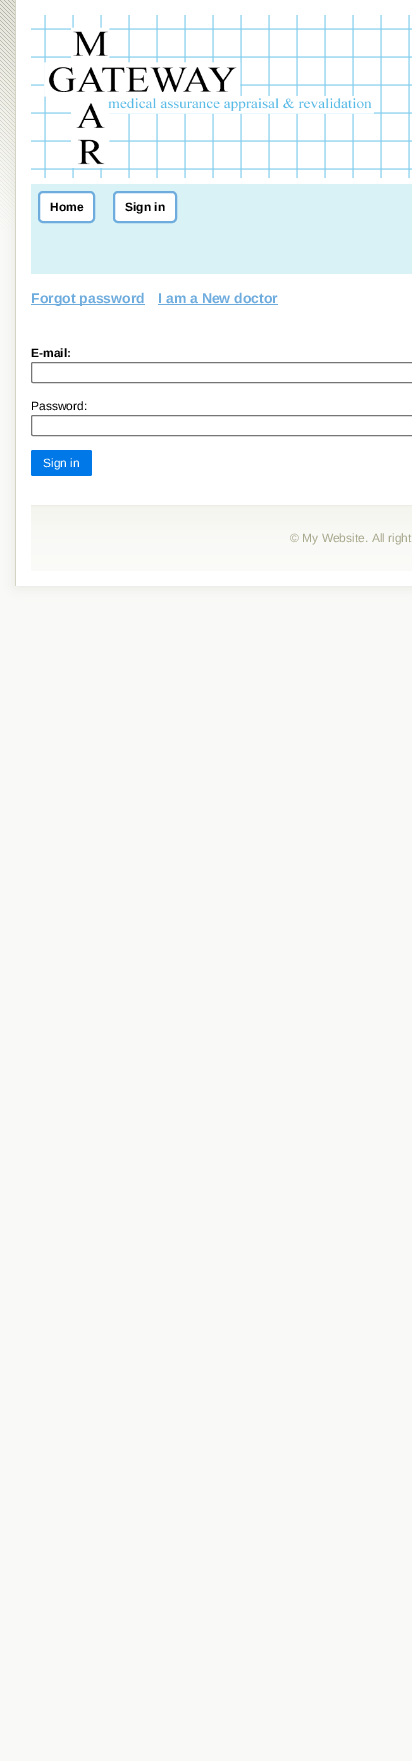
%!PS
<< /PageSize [412 1761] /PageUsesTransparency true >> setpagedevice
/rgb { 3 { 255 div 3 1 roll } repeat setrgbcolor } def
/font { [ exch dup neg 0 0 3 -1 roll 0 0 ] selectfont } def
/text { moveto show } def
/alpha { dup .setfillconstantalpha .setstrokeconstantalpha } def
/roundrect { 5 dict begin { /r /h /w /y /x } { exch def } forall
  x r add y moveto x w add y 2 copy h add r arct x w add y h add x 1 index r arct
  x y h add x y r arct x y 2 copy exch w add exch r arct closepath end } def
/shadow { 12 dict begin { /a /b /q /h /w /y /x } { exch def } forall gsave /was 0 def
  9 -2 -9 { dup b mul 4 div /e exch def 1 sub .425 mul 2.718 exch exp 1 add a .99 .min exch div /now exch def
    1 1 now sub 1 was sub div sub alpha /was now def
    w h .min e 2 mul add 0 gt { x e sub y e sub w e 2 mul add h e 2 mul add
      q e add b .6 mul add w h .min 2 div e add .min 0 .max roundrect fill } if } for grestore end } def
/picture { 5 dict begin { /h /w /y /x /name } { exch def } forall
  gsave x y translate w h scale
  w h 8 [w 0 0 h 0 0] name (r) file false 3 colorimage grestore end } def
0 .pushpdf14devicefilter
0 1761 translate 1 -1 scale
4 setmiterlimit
249 249 247 rgb
0 0 412 1761 rectfill
(img_01.rgb) 0 0 15 229 picture
212 212 197 rgb
16 0 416 586 0 6.5 0.52 shadow
255 255 255 rgb
16 0 396 586 rectfill
212 212 197 rgb
15 0 1 586 rectfill
(img_02.rgb) 31 15 381 163 picture
(img_03.rgb) 44 27 330 141 picture
217 242 245 rgb
31 184 381 90 rectfill
255 255 255 rgb
39 192 55 30 4 roundrect gsave fill grestore
111 172 222 rgb
2 setlinewidth
stroke
255 255 255 rgb
114 192 62 30 4 roundrect gsave fill grestore
111 172 222 rgb
stroke
31 304 114 1 rectfill
158 304 120 1 rectfill
118 118 118 rgb
1 setlinewidth
31.5 362.5 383 20 1.5 roundrect stroke
31.5 415.5 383 20 1.5 roundrect stroke
0 120 231 rgb
31 450 61 26 2 roundrect fill
(img_04.rgb) 31 505 381 66 picture
/LiberationSans-Bold 12 font
0 0 0 rgb
(Home) 50 211 text
(Sign in) 125 211 text
/LiberationSans-Bold 14 font
111 172 222 rgb
(Forgot password) 31 303 text
(I am a New doctor) 158 303 text
/LiberationSans-Bold 12 font
0 0 0 rgb
(E-mail:) 31 357 text
/LiberationSans-Regular 12 font
(Password:) 31 410 text
255 255 255 rgb
(Sign in) 43 467 text
168 168 141 rgb
(© My Website. All right) 290 542 text
.poppdf14devicefilter showpage
